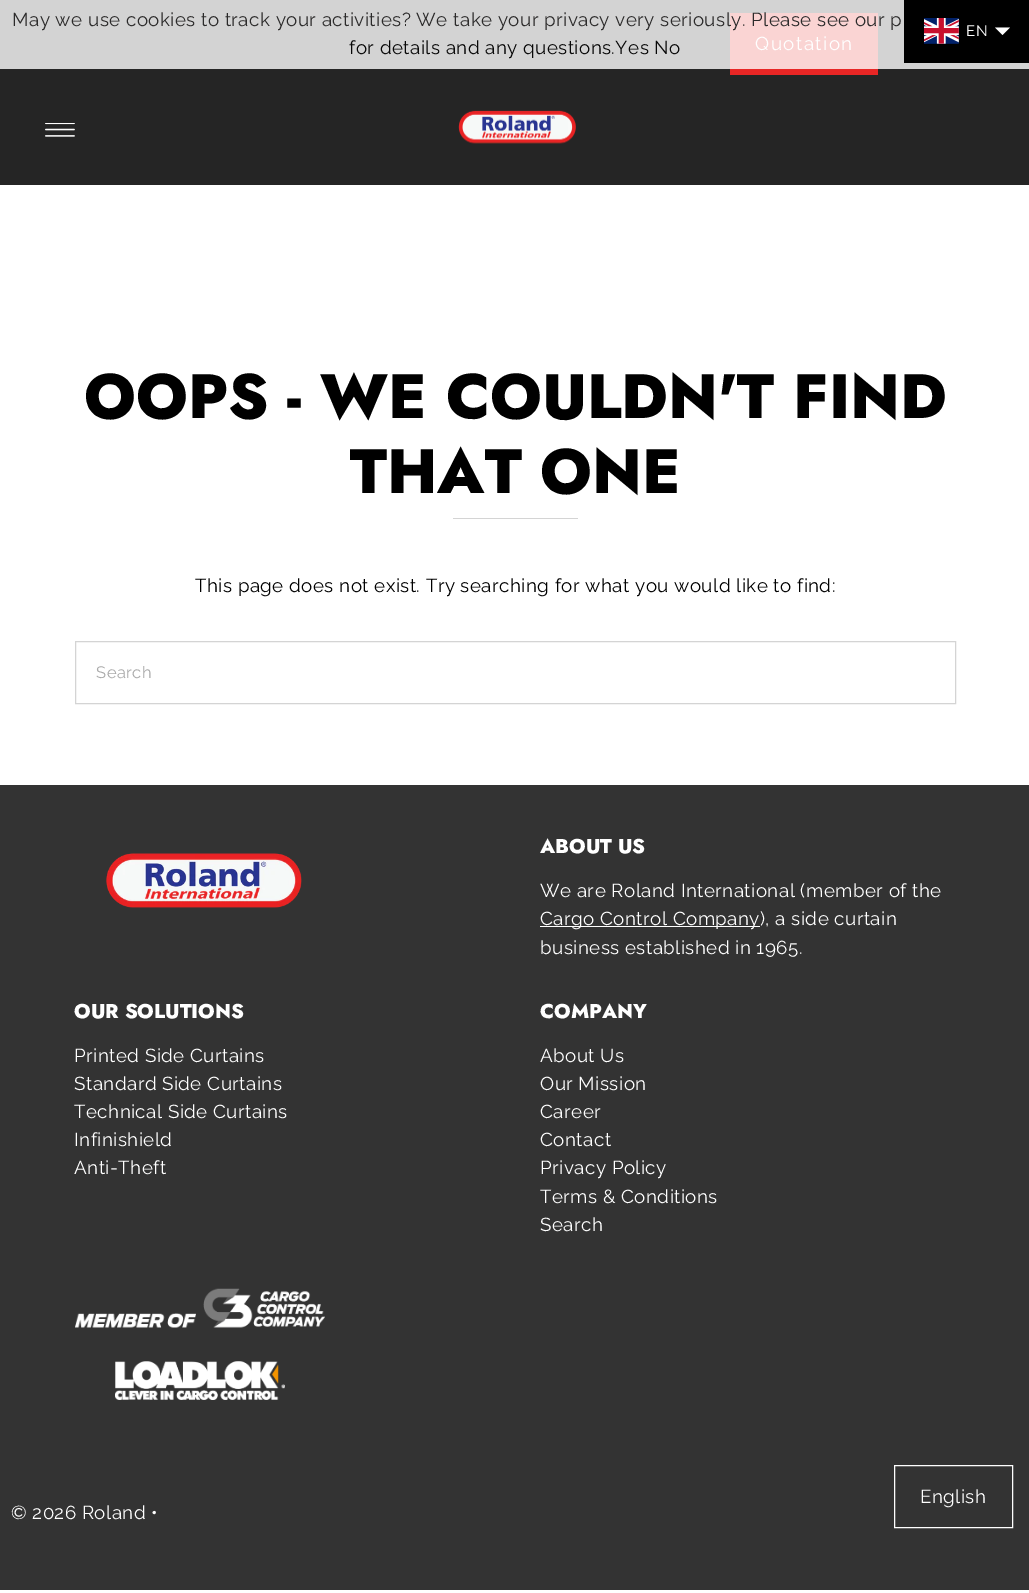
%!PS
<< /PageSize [1029 1593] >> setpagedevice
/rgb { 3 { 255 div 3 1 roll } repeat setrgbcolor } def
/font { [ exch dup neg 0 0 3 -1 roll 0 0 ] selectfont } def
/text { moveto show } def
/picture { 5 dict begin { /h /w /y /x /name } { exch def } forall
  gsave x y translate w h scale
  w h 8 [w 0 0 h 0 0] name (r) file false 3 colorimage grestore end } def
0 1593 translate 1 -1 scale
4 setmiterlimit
255 255 255 rgb
0 0 1029 1593 rectfill
211 211 211 rgb
0 0 1029 69 rectfill
0 0 0 rgb
904 0 125 63 rectfill
(img_01.rgb) 924 18 35 26 picture
255 255 255 rgb
995 27.5 moveto 15 0 rlineto -7.5 7.5 rlineto closepath fill
37 37 37 rgb
0 69 1029 116 rectfill
232 38 37 rgb
730 69 148 6 rectfill
250 212 211 rgb
730 13 148 56 rectfill
(img_02.rgb) 45 123 30 14 picture
(img_03.rgb) 458 110 118 34 picture
212 212 212 rgb
453 518 125 1 rectfill
75.5 641.5 880 62 rectstroke
51 51 51 rgb
0 785 1029 805 rectfill
(img_04.rgb) 106 853 196 55 picture
255 255 255 rgb
540 926 220 1 rectfill
(img_05.rgb) 75 1288 250 40 picture
(img_06.rgb) 115 1361 170 39 picture
894.5 1465.5 118 62 rectstroke
/Raleway-Regular 18.75 font
43 42 42 rgb
12 26 moveto 0.47 0 (May we use cookies to track your activities? We take your privacy very seriously. Please see our p) ashow
7 7 7 rgb
349 54 moveto 0.47 0 (for details and any questions.Yes No) ashow
/Raleway-Regular 15 font
255 255 255 rgb
966 36 moveto 0.47 0 (EN) ashow
/Raleway-Regular 18.75 font
755 50 moveto 1.5 0 (Quotation) ashow
/Jost-ExtraBold 62.5 font
0 0 0 rgb
(OOPS - WE COULDN'T FIND) 84 418 text
(THAT ONE) 350 493 text
/Raleway-Regular 18.75 font
195 592 moveto 0.47 0 (This page does not exist. Try searching for what you would like to find:) ashow
/Raleway-Regular 16.5 font
170 170 170 rgb
96 678 moveto 0.5 0 (Search) ashow
/Jost-ExtraBold 20 font
255 255 255 rgb
(ABOUT US) 540 853 text
/Raleway-Regular 18.75 font
540 897 moveto 0.47 0 (We are Roland International \(member of the) ashow
540 925 moveto 0.47 0 (Cargo Control Company\), a side curtain) ashow
540 954 moveto 0.47 0 (business established in 1965.) ashow
/Jost-ExtraBold 20 font
(OUR SOLUTIONS) 74 1018 text
/Raleway-Regular 18.75 font
74 1062 moveto 0.47 0 (Printed Side Curtains) ashow
74 1090 moveto 0.47 0 (Standard Side Curtains) ashow
74 1118 moveto 0.47 0 (Technical Side Curtains) ashow
74 1146 moveto 0.47 0 (Infinishield) ashow
74 1174 moveto 0.47 0 (Anti-Theft) ashow
/Jost-ExtraBold 20 font
(COMPANY) 540 1018 text
/Raleway-Regular 18.75 font
540 1062 moveto 0.47 0 (About Us) ashow
540 1090 moveto 0.47 0 (Our Mission) ashow
540 1118 moveto 0.47 0 (Career) ashow
540 1146 moveto 0.47 0 (Contact) ashow
540 1174 moveto 0.47 0 (Privacy Policy) ashow
540 1203 moveto 0.47 0 (Terms & Conditions) ashow
540 1231 moveto 0.47 0 (Search) ashow
920 1503 moveto 0.47 0 (English) ashow
11 1519 moveto 0.47 0 (© 2026 Roland •) ashow
showpage
